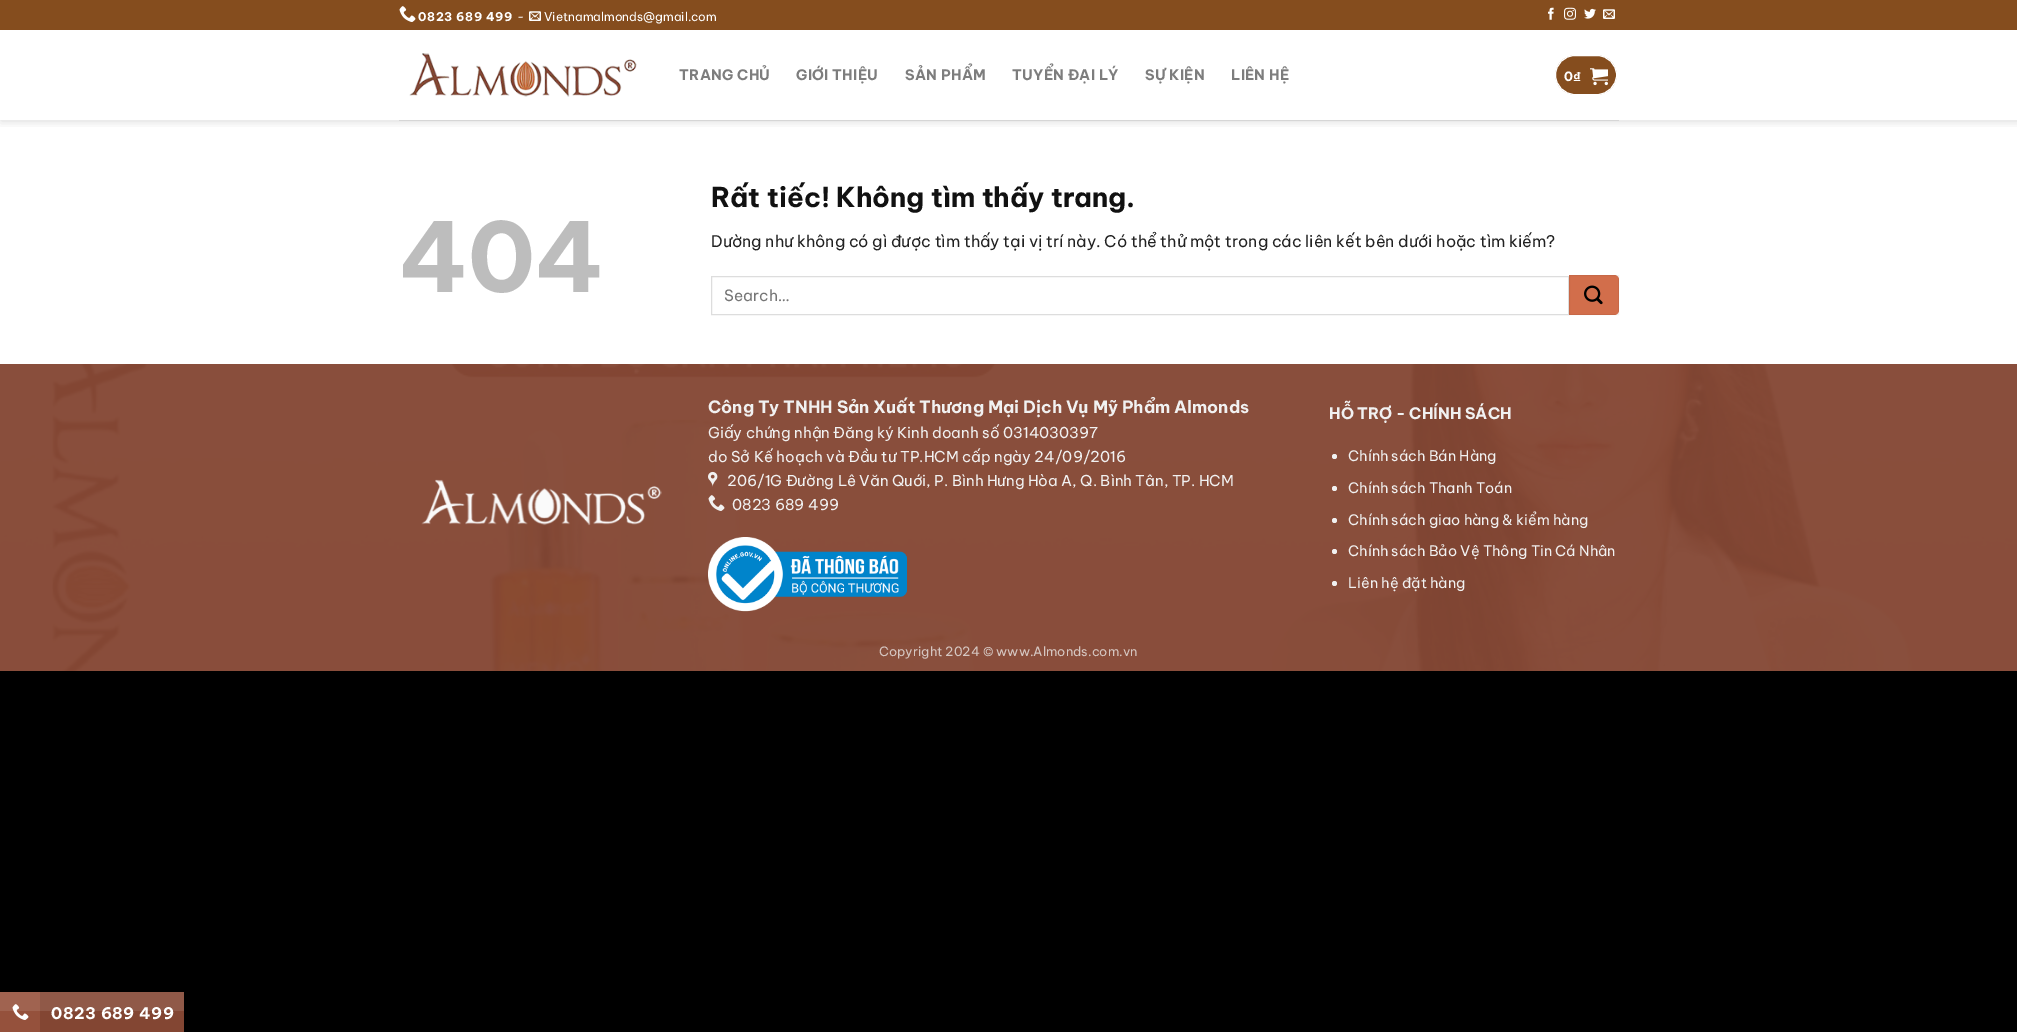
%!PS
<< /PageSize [2017 1032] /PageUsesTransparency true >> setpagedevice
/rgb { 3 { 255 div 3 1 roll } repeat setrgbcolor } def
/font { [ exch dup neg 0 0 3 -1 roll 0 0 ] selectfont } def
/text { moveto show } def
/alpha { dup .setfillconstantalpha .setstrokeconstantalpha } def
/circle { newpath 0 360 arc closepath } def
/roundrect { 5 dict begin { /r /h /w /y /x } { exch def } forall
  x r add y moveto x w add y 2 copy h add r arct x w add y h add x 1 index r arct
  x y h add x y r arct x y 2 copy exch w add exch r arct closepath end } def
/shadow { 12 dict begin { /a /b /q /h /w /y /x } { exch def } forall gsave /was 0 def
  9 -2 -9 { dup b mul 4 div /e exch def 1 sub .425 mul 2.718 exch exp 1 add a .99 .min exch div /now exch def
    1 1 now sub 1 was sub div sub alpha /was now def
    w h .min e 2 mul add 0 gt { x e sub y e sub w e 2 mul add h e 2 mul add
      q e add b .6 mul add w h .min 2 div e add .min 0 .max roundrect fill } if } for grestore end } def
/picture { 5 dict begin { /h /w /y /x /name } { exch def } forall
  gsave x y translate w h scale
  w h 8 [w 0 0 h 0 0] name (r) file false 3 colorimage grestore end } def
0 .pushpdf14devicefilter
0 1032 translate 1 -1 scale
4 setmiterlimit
0 0 0 rgb
0 0 2017 1032 rectfill
255 255 255 rgb
0 30 2017 334 rectfill
gsave
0 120 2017 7 rectclip
0 0 0 rgb
1 1 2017 120 0 5 0.15 shadow
grestore
133 77 30 rgb
0 0 2017 30 rectfill
(img_01.rgb) 399 6 17 16 picture
(img_02.rgb) 529 11 12 10 picture
(img_03.rgb) 1548 7 6 13 picture
(img_04.rgb) 1564 7 12 13 picture
(img_05.rgb) 1584 8 12 11 picture
(img_02.rgb) 1603 9 12 10 picture
(img_06.rgb) 409 53 228 44 picture
1555.5 55.5 61 39 19.5 roundrect gsave fill grestore
255 255 255 rgb
stroke
(img_07.rgb) 1590 68 18 18 picture
214 214 214 rgb
399 120 1220 1 rectfill
221 221 221 rgb
711.5 276.5 857 38 rectstroke
210 110 75 rgb
1569 275 moveto 45 0 rlineto 3 0 5 2 5 5 rcurveto 0 30 rlineto 0 3 -2 5 -5 5 rcurveto -45 0 rlineto closepath fill
0.05 alpha
0 0 0 rgb
1569.5 275.5 49 39 rectstroke
1 alpha
(img_08.rgb) 1584 285 19 20 picture
(img_09.rgb) 0 364 2017 307 picture
(img_10.rgb) 421 479 241 47 picture
(img_11.rgb) 708 471 10 16 picture
(img_12.rgb) 708 495 17 16 picture
(img_13.rgb) 708 537 199 75 picture
241 241 241 rgb
1334.5 456.5 2.5 circle fill
1334.5 488.5 2.5 circle fill
1334.5 520.5 2.5 circle fill
1334.5 551.5 2.5 circle fill
1334.5 583.5 2.5 circle fill
131 70 51 rgb
40 992 144 40 rectfill
149 81 60 rgb
0 992 40 40 rectfill
(img_14.rgb) 12 1004 17 16 picture
0.1 alpha
255 255 255 rgb
0 992 184 19 rectfill
/BeVietnamPro-Bold 12 font
1 alpha
418 21 moveto 0.6 0 (0823 689 499) ashow
/BeVietnamPro-Regular 12 font
(-) 517 21 text
(Vietnamalmonds@gmail.com) 544 21 text
/BeVietnamPro-Bold 14.4 font
125 125 125 rgb
679 80 moveto 0.25 0 (TRANG CHỦ) ashow
796 80 moveto 0.25 0 (GIỚI THIỆU) ashow
905 80 moveto 0.25 0 (SẢN PHẨM) ashow
1012 80 moveto 0.25 0 (TUYỂN ĐẠI LÝ) ashow
1145 80 moveto 0.25 0 (SỰ KIỆN) ashow
1231 80 moveto 0.25 0 (LIÊN HỆ) ashow
/BeVietnamPro-Bold 12.8 font
255 255 255 rgb
(0₫) 1564 81 text
/BeVietnamPro-Bold 96 font
189 189 189 rgb
(404) 399 292 text
/BeVietnamPro-Bold 27.25 font
17 17 17 rgb
(Rất tiếc! Không tìm thấy trang.) 711 207 text
/BeVietnamPro-Regular 16 font
34 34 34 rgb
(Dường như không có gì được tìm thấy tại vị trí này. Có thể thử một trong các liên kết bên dưới hoặc tìm kiếm?) 711 247 text
/BeVietnamPro-Regular 15.5 font
117 117 117 rgb
(Search…) 724 301 text
/BeVietnamPro-Bold 17 font
241 241 241 rgb
(Công Ty TNHH Sản Xuất Thương Mại Dịch Vụ Mỹ Phẩm Almonds) 708 413 text
/BeVietnamPro-Regular 15 font
(Giấy chứng nhận Đăng ký Kinh doanh số 0314030397) 708 438 text
(do Sở Kế hoạch và Đầu tư TP.HCM cấp ngày 24/09/2016) 708 462 text
(206/1G Đường Lê Văn Quới, P. Bình Hưng Hòa A, Q. Bình Tân, TP. HCM) 727 486 text
(0823 689 499) 732 510 text
/BeVietnamPro-Bold 15.8 font
(HỖ TRỢ - CHÍNH SÁCH) 1329 419 text
/BeVietnamPro-Regular 14.4 font
(Chính sách Bán Hàng) 1348 461 text
(Chính sách Thanh Toán) 1348 493 text
(Chính sách giao hàng & kiểm hàng) 1348 525 text
(Chính sách Bảo Vệ Thông Tin Cá Nhân) 1348 556 text
(Liên hệ đặt hàng) 1348 588 text
/BeVietnamPro-Regular 12.8 font
213 198 193 rgb
(Copyright 2024 © www.Almonds.com.vn) 879 656 text
/BeVietnamPro-Bold 16 font
255 255 255 rgb
51 1019 moveto 0.5 0 (0823 689 499) ashow
.poppdf14devicefilter showpage
